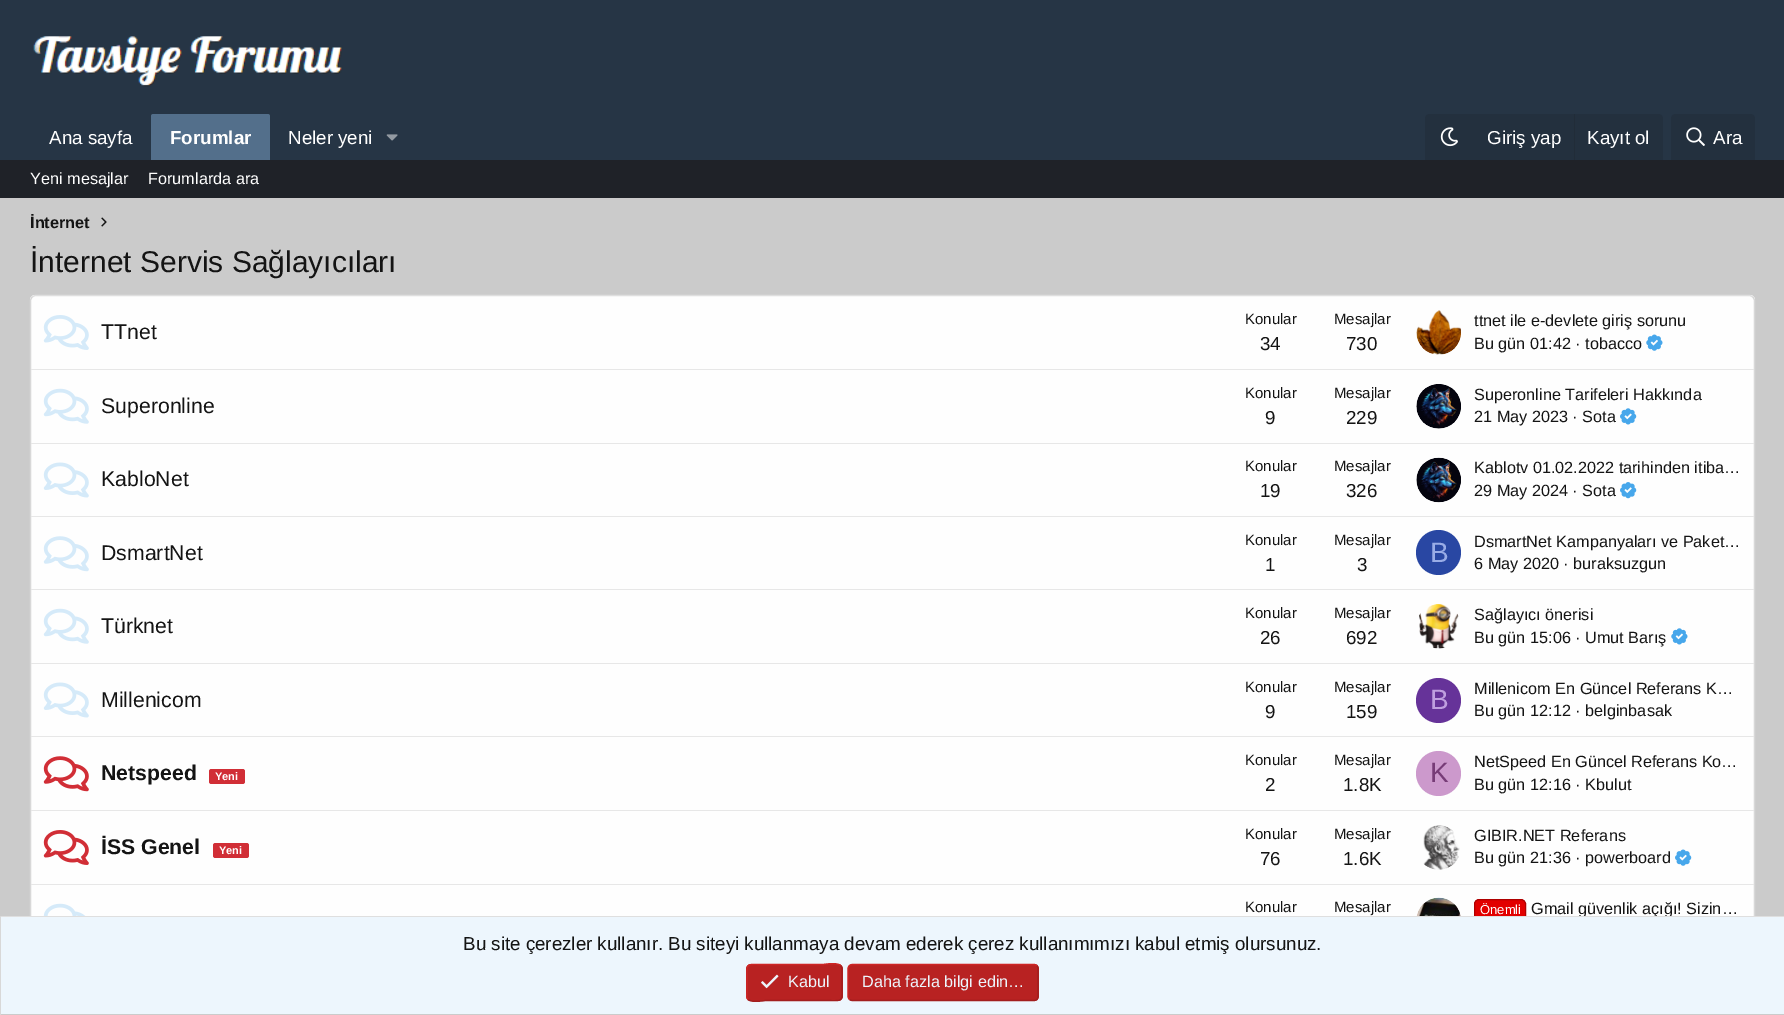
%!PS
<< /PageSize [1784 1015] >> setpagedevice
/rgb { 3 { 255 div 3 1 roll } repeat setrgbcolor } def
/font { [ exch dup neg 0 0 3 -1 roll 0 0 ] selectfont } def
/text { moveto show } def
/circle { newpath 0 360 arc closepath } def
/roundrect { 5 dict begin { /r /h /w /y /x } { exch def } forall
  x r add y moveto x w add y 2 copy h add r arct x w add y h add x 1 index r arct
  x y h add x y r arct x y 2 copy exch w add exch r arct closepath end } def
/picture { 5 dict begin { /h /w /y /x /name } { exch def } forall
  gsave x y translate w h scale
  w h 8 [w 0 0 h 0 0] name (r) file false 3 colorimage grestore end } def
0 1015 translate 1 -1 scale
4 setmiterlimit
203 203 203 rgb
0 0 1784 1015 rectfill
38 53 69 rgb
0 0 1784 160 rectfill
(img_01.rgb) 33 36 309 51 picture
83 111 139 rgb
153.5 114 moveto 114 0 rlineto 1.5 0 2.5 1 2.5 2.5 rcurveto 0 43.5 rlineto -119 0 rlineto 0 -43.5 rlineto 0 -1.5 1 -2.5 2.5 -2.5 rcurveto closepath fill
(img_02.rgb) 386 134 12 7 picture
35 48 62 rgb
1430 114 moveto 228 0 rlineto 3 0 5 2 5 5 rcurveto 0 41 rlineto -238 0 rlineto 0 -41 rlineto 0 -3 2 -5 5 -5 rcurveto closepath fill
(img_03.rgb) 1440 127 18 20 picture
33 44 56 rgb
1574 114 1 46 rectfill
35 48 62 rgb
1676 114 moveto 74 0 rlineto 3 0 5 2 5 5 rcurveto 0 41 rlineto -84 0 rlineto 0 -41 rlineto 0 -3 2 -5 5 -5 rcurveto closepath fill
(img_04.rgb) 1686 127 19 19 picture
31 34 40 rgb
0 160 1784 38 rectfill
(img_05.rgb) 101 217 6 10 picture
254 254 254 rgb
30 295 1725 663 5 roundrect fill
223 223 223 rgb
1.2 setlinewidth
32 297 moveto 3 -1.5 rlineto 1715 0 rlineto 3 1.5 rlineto stroke
216 216 216 rgb
1753 297 moveto 1.5 3 rlineto 0 652.5 rlineto -1.5 3 rlineto stroke
32 955.5 moveto -1.5 -3 rlineto 0 -652.5 rlineto 1.5 -3 rlineto stroke
(img_06.rgb) 43 315 46 35 picture
(img_07.rgb) 1416 310 45 45 picture
(img_08.rgb) 1646 334 17 17 picture
231 231 231 rgb
31 369 1723 1 rectfill
(img_09.rgb) 43 388 46 36 picture
(img_10.rgb) 1416 384 45 45 picture
(img_11.rgb) 1620 408 17 17 picture
31 443 1723 1 rectfill
(img_12.rgb) 43 462 46 36 picture
(img_13.rgb) 1416 457 45 46 picture
(img_14.rgb) 1620 482 17 17 picture
31 516 1723 1 rectfill
(img_15.rgb) 43 536 46 36 picture
41 71 163 rgb
1438.5 552.5 22.5 circle fill
231 231 231 rgb
31 589 1723 1 rectfill
(img_09.rgb) 43 608 46 36 picture
(img_16.rgb) 1419 604 40 45 picture
(img_17.rgb) 1671 628 17 17 picture
31 663 1723 1 rectfill
(img_12.rgb) 43 682 46 36 picture
102 51 153 rgb
1438.5 700.5 22.5 circle fill
231 231 231 rgb
31 736 1723 1 rectfill
(img_18.rgb) 43 756 46 36 picture
209 46 54 rgb
209 769 36 15 2.5 roundrect fill
204 153 204 rgb
1438.5 773.5 22.5 circle fill
231 231 231 rgb
31 810 1723 1 rectfill
(img_19.rgb) 43 830 46 35 picture
209 46 54 rgb
213 843 36 15 2.5 roundrect fill
(img_20.rgb) 1423 825 37 45 picture
(img_21.rgb) 1675 849 17 17 picture
231 231 231 rgb
31 884 1723 1 rectfill
(img_22.rgb) 43 903 43 13 picture
(img_23.rgb) 1416 897 45 19 picture
226 0 0 rgb
1474.5 899.5 51 20 4.5 roundrect gsave fill grestore
175 0 0 rgb
1 setlinewidth
stroke
/LiberationSans-Regular 18.75 font
255 255 255 rgb
(Ana sayfa) 49 144 text
/LiberationSans-Bold 18.75 font
(Forumlar) 170 144 text
/LiberationSans-Regular 18.75 font
(Neler yeni) 288 144 text
(Giriş yap) 1487 144 text
(Kayıt ol) 1587 144 text
(Ara) 1713 144 text
/LiberationSans-Regular 16.25 font
(Yeni mesajlar) 30 184 text
(Forumlarda ara) 148 184 text
/LiberationSans-Bold 16.25 font
20 20 20 rgb
(İnternet) 30 228 text
/LiberationSans-Regular 30 font
(İnternet Servis Sağlayıcıları) 30 272 text
/LiberationSans-Regular 21.25 font
(TTnet) 101 339 text
/LiberationSans-Regular 15 font
(Konular) 1245 324 text
/LiberationSans-Regular 18.75 font
(34) 1260 350 text
/LiberationSans-Regular 15 font
(Mesajlar) 1334 324 text
/LiberationSans-Regular 18.75 font
(730) 1346 350 text
/LiberationSans-Regular 16.25 font
(ttnet ile e-devlete giriş sorunu) 1474 326 text
(Bu gün 01:42 · tobacco) 1474 349 text
/LiberationSans-Regular 21.25 font
(Superonline) 101 413 text
/LiberationSans-Regular 15 font
(Konular) 1245 398 text
/LiberationSans-Regular 18.75 font
(9) 1265 424 text
/LiberationSans-Regular 15 font
(Mesajlar) 1334 398 text
/LiberationSans-Regular 18.75 font
(229) 1346 424 text
/LiberationSans-Regular 16.25 font
(Superonline Tarifeleri Hakkında) 1474 400 text
(21 May 2023 · Sota) 1474 422 text
/LiberationSans-Regular 21.25 font
(KabloNet) 101 486 text
/LiberationSans-Regular 15 font
(Konular) 1245 471 text
/LiberationSans-Regular 18.75 font
(19) 1260 497 text
/LiberationSans-Regular 15 font
(Mesajlar) 1334 471 text
/LiberationSans-Regular 18.75 font
(326) 1346 497 text
/LiberationSans-Regular 16.25 font
(Kablotv 01.02.2022 tarihinden itiba…) 1474 473 text
(29 May 2024 · Sota) 1474 496 text
/LiberationSans-Regular 21.25 font
(DsmartNet) 101 560 text
/LiberationSans-Regular 15 font
(Konular) 1245 545 text
/LiberationSans-Regular 18.75 font
(1) 1265 571 text
/LiberationSans-Regular 15 font
(Mesajlar) 1334 545 text
/LiberationSans-Regular 18.75 font
(3) 1357 571 text
/LiberationSans-Regular 28 font
153 172 230 rgb
(B) 1430 562 text
/LiberationSans-Regular 16.25 font
20 20 20 rgb
(DsmartNet Kampanyaları ve Paket…) 1474 547 text
(6 May 2020 · buraksuzgun) 1474 569 text
/LiberationSans-Regular 21.25 font
(Türknet) 101 633 text
/LiberationSans-Regular 15 font
(Konular) 1245 618 text
/LiberationSans-Regular 18.75 font
(26) 1260 644 text
/LiberationSans-Regular 15 font
(Mesajlar) 1334 618 text
/LiberationSans-Regular 18.75 font
(692) 1346 644 text
/LiberationSans-Regular 16.25 font
(Sağlayıcı önerisi) 1474 620 text
(Bu gün 15:06 · Umut Barış) 1474 643 text
/LiberationSans-Regular 21.25 font
(Millenicom) 101 707 text
/LiberationSans-Regular 15 font
(Konular) 1245 692 text
/LiberationSans-Regular 18.75 font
(9) 1265 718 text
/LiberationSans-Regular 15 font
(Mesajlar) 1334 692 text
/LiberationSans-Regular 18.75 font
(159) 1346 718 text
/LiberationSans-Regular 16.25 font
(Millenicom En Güncel Referans K…) 1474 694 text
/LiberationSans-Regular 28 font
191 159 223 rgb
(B) 1430 709 text
/LiberationSans-Regular 16.25 font
20 20 20 rgb
(Bu gün 12:12 · belginbasak) 1474 716 text
/LiberationSans-Bold 21.25 font
(Netspeed) 101 780 text
/LiberationSans-Bold 11 font
255 255 255 rgb
(Yeni) 215 780 text
/LiberationSans-Regular 15 font
20 20 20 rgb
(Konular) 1245 765 text
/LiberationSans-Regular 18.75 font
(2) 1265 791 text
/LiberationSans-Regular 15 font
(Mesajlar) 1334 765 text
/LiberationSans-Regular 18.75 font
(1.8K) 1343 791 text
/LiberationSans-Regular 28 font
119 60 119 rgb
(K) 1430 782 text
/LiberationSans-Regular 16.25 font
20 20 20 rgb
(NetSpeed En Güncel Referans Ko…) 1474 767 text
(Bu gün 12:16 · Kbulut) 1474 790 text
/LiberationSans-Bold 21.25 font
(İSS Genel) 101 854 text
/LiberationSans-Bold 11 font
255 255 255 rgb
(Yeni) 219 854 text
/LiberationSans-Regular 15 font
20 20 20 rgb
(Konular) 1245 839 text
/LiberationSans-Regular 18.75 font
(76) 1260 865 text
/LiberationSans-Regular 15 font
(Mesajlar) 1334 839 text
/LiberationSans-Regular 18.75 font
(1.6K) 1343 865 text
/LiberationSans-Regular 16.25 font
(GIBIR.NET Referans) 1474 841 text
(Bu gün 21:36 · powerboard) 1474 863 text
/LiberationSans-Regular 15 font
(Konular) 1245 912 text
(Mesajlar) 1334 912 text
/LiberationSans-Regular 13 font
255 255 255 rgb
(Önemli) 1480 914 text
/LiberationSans-Regular 16.25 font
20 20 20 rgb
(Gmail güvenlik açığı! Sizin…) 1531 914 text
237 246 253 rgb
1 917 1783 97 rectfill
223 223 223 rgb
0 916 1784 1 rectfill
216 216 216 rgb
0 916 1 99 rectfill
/LiberationSans-Regular 18.75 font
20 20 20 rgb
(Bu site çerezler kullanır. Bu siteyi kullanmaya devam ederek çerez kullanımımızı kabul etmiş olursunuz.) 463 950 text
184 34 34 rgb
746 964 97 37 5 roundrect fill
162 30 30 rgb
1.2 setlinewidth
840.5 965.5 moveto 2 2 1.5 5.5 1.5 8 rcurveto 0 9 rlineto 0 21 3 18 -19 18 rcurveto -57.5 0 rlineto -0.5 0 -14 2.5 -17.5 -1 rcurveto stroke
206 38 38 rgb
748 999.5 moveto -2 -2 -1 -5.5 -1 -8 rcurveto 0 -9 rlineto 0 -21 -3 -18 18.5 -18 rcurveto 57.5 0 rlineto 0.5 0 14 -2.5 17.5 1 rcurveto stroke
(img_24.rgb) 761 974 18 15 picture
/LiberationSans-Regular 16.25 font
237 246 253 rgb
(Kabul) 788 987 text
184 34 34 rgb
848 964 191 37 5 roundrect fill
162 30 30 rgb
1037 965.5 moveto 0.5 1 1 2 1 3.5 rcurveto 0 27 rlineto 0 1.5 -0.5 2.5 -1 3.5 rcurveto -1 0.5 -2 1 -3 1 rcurveto -181.5 0 rlineto -1 0 -2.5 -0.5 -3 -1 rcurveto stroke
206 38 38 rgb
849.5 999.5 moveto -1 -1 -1.5 -2 -1.5 -3.5 rcurveto 0 -27 rlineto 0 -1.5 0.5 -2.5 1.5 -3.5 rcurveto 0.5 -0.5 2 -1 3 -1 rcurveto 181.5 0 rlineto 1 0 2 0.5 3 1 rcurveto stroke
237 246 253 rgb
(Daha fazla bilgi edin…) 862 987 text
showpage
